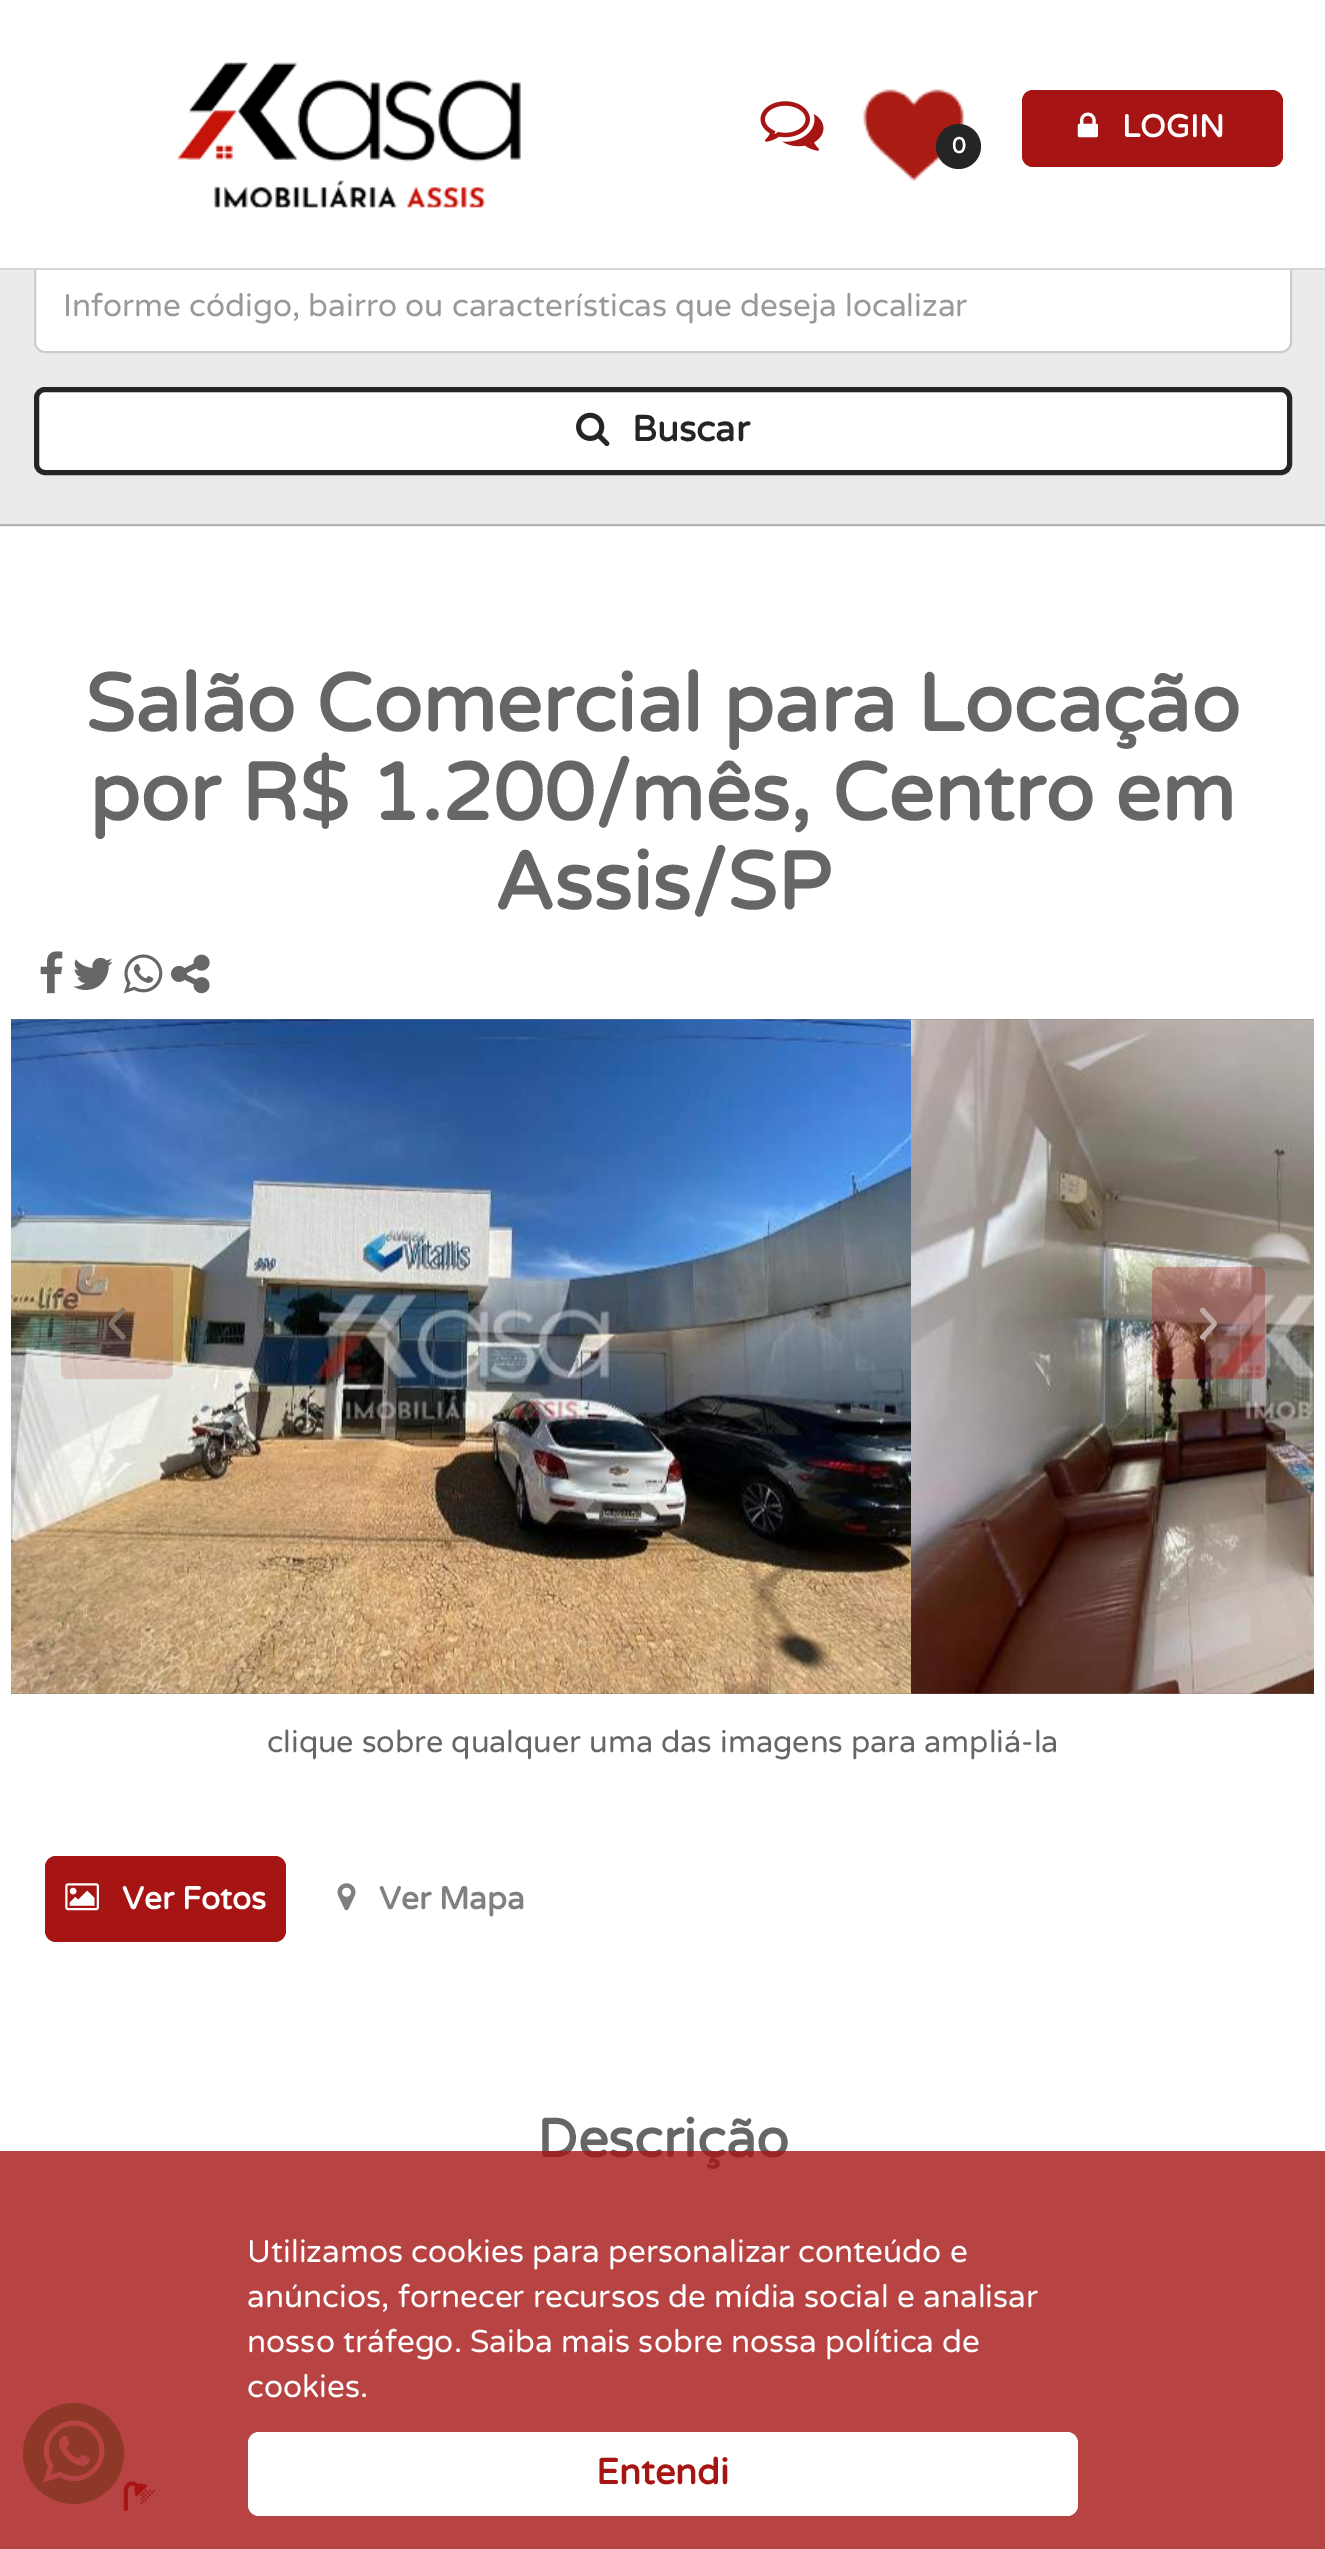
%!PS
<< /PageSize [1325 2549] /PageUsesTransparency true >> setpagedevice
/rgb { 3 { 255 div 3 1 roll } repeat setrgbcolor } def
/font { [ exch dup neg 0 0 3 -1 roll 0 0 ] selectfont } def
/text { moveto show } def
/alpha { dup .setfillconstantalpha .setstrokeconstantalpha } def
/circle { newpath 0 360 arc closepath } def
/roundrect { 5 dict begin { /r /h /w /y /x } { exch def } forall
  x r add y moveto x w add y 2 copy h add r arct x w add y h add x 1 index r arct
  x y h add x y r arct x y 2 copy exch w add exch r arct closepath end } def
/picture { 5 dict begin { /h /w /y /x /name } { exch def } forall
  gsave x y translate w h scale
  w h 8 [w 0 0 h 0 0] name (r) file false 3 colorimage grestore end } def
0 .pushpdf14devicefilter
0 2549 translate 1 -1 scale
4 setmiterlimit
255 255 255 rgb
0 0 1325 2549 rectfill
235 235 235 rgb
0 270 1325 257 rectfill
255 255 255 rgb
35 260 1256 92 10 roundrect gsave fill grestore
204 204 204 rgb
2 setlinewidth
stroke
255 255 255 rgb
34 259 1258 9 rectfill
214 214 214 rgb
0 268 1325 2 rectfill
(img_01.rgb) 176 62 345 146 picture
(img_02.rgb) 760 101 64 50 picture
166 20 20 rgb
1022 90 261 77 11 roundrect fill
(img_03.rgb) 1077 112 21 26 picture
(img_04.rgb) 863 89 101 92 picture
37 37 37 rgb
958.5 146.5 22.5 circle fill
180 180 180 rgb
0 524 1325 2 rectfill
255 255 255 rgb
36.5 389.5 1253 83 8.5 roundrect gsave fill grestore
37 37 37 rgb
5 setlinewidth
stroke
(img_05.rgb) 576 412 34 35 picture
(img_06.rgb) 40 951 23 43 picture
(img_07.rgb) 73 957 40 33 picture
(img_08.rgb) 123 954 40 40 picture
(img_09.rgb) 171 954 39 40 picture
128 128 128 rgb
11 1019 1303 675 rectfill
(img_10.rgb) 11 1019 900 675 picture
(img_11.rgb) 911 1019 403 675 picture
0.15 alpha
166 20 20 rgb
61 1267 112 112 7 roundrect fill
0.3 alpha
1152 1267 113 112 7 roundrect fill
1 alpha
45 1856 241 86 11 roundrect fill
(img_12.rgb) 65 1883 34 28 picture
(img_13.rgb) 337 1883 19 28 picture
(img_14.rgb) 123 2481 33 30 picture
46 204 113 rgb
73.5 2453.5 49.5 circle gsave fill grestore
2 setlinewidth
stroke
(img_15.rgb) 42 2420 63 63 picture
/VarelaRound-Bold 31.5 font
255 255 255 rgb
(LOGIN) 1122 137 text
/VarelaRound-Bold 22 font
(0) 952 153 text
/VarelaRound-Regular 31.5 font
153 153 153 rgb
(Informe código, bairro ou características que deseja localizar) 63 316 text
/VarelaRound-Bold 36 font
37 37 37 rgb
(Buscar) 632 441 text
/VarelaRound-Bold 81 font
102 102 102 rgb
(Salão Comercial para Locação) 85 731 text
(por R$ 1.200/mês, Centro em) 89 820 text
(Assis/SP) 494 909 text
/VarelaRound-Regular 68 font
132 114 103 rgb
(‹) 105 1341 text
192 170 166 rgb
(›) 1195 1341 text
/VarelaRound-Regular 30.6 font
102 102 102 rgb
(clique sobre qualquer uma das imagens para ampliá-la) 267 1752 text
/VarelaRound-Bold 31.5 font
255 255 255 rgb
(Ver Fotos) 122 1909 text
128 128 128 rgb
(Ver Mapa) 379 1909 text
/VarelaRound-Bold 54 font
102 102 102 rgb
(Descrição) 537 2157 text
0.8 alpha
166 20 20 rgb
0 2151 1325 398 rectfill
/VarelaRound-Regular 31.5 font
1 alpha
255 255 255 rgb
(Utilizamos cookies para personalizar conteúdo e) 247 2262 text
(anúncios, fornecer recursos de mídia social e analisar) 247 2307 text
(nosso tráfego. Saiba mais sobre nossa política de) 247 2352 text
(cookies.) 247 2397 text
248 2432 830 84 11 roundrect fill
/VarelaRound-Bold 36 font
166 20 20 rgb
(Entendi) 596 2484 text
.poppdf14devicefilter showpage
